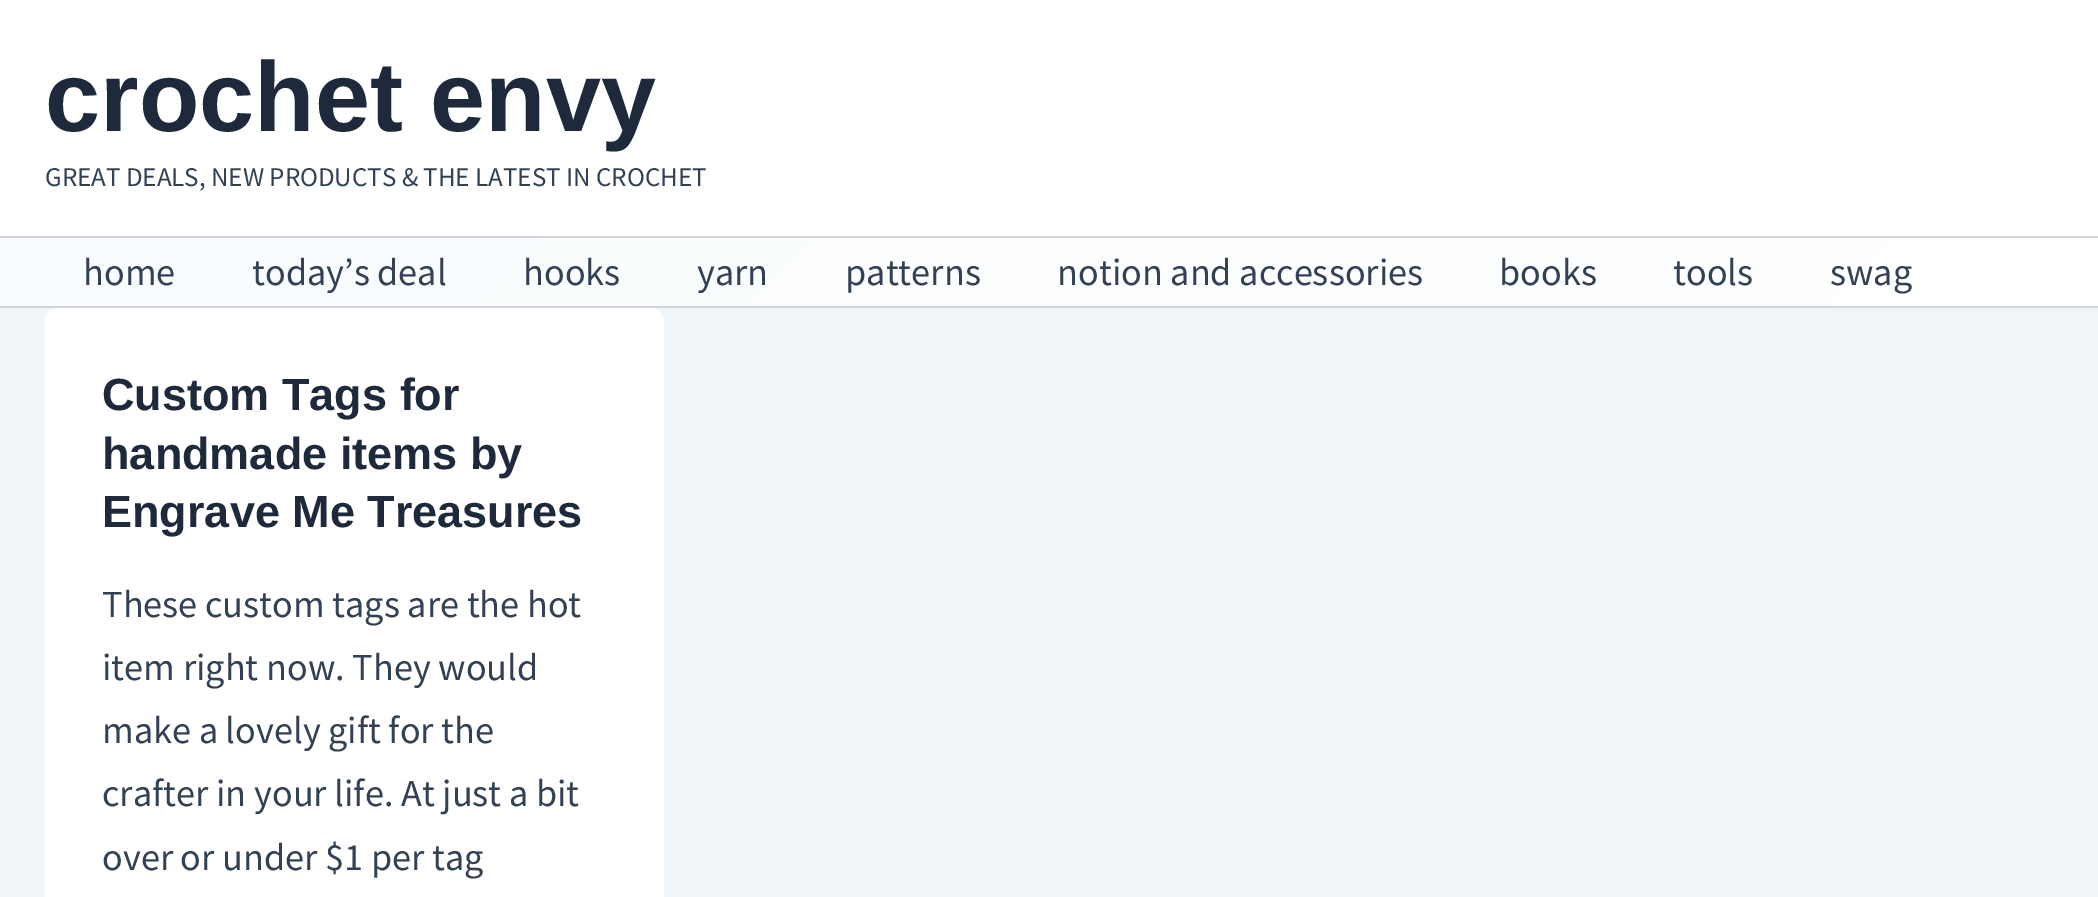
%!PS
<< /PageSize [2098 897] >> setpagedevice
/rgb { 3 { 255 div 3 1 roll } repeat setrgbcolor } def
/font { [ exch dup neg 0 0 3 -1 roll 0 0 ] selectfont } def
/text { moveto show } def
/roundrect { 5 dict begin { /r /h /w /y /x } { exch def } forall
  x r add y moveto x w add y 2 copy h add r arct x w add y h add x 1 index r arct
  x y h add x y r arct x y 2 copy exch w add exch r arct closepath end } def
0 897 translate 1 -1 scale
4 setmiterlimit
240 245 250 rgb
0 0 2098 897 rectfill
255 255 255 rgb
0 0 2098 239 rectfill
209 213 219 rgb
0 236 2098 2 rectfill
gsave 0 239 moveto 2098 0 rlineto 0 67 rlineto -2098 0 rlineto closepath clip newpath
<< /ShadingType 2 /ColorSpace /DeviceRGB /Coords [508 -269 1591 814] /Extend [true true] /Function << /FunctionType 2 /Domain [0 1] /C0 [0.973 0.988 0.996] /C1 [1 1 1] /N 1 >> >> shfill grestore
0 306 2098 2 rectfill
255 255 255 rgb
45 308 619 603 14 roundrect fill
/LiberationSans-Bold 99 font
30 41 59 rgb
(crochet envy) 45 131 text
/SourceSansPro-Regular 27 font
51 65 85 rgb
(GREAT DEALS, NEW PRODUCTS & THE LATEST IN CROCHET) 45 186 text
/SourceSansPro-Regular 38.25 font
(home) 83 285 text
(today’s deal) 252 285 text
(hooks) 523 285 text
(yarn) 697 285 text
(patterns) 845 285 text
(notion and accessories) 1057 285 text
(books) 1499 285 text
(tools) 1673 285 text
(swag) 1830 285 text
/LiberationSans-Bold 45 font
30 41 59 rgb
(Custom Tags for) 102 410 text
(handmade items by) 102 469 text
(Engrave Me Treasures) 102 527 text
/SourceSansPro-Regular 38.25 font
51 65 85 rgb
(These custom tags are the hot) 102 617 text
(item right now. They would) 102 680 text
(make a lovely gift for the) 102 743 text
(crafter in your life. At just a bit) 102 806 text
(over or under $1 per tag) 102 870 text
showpage
